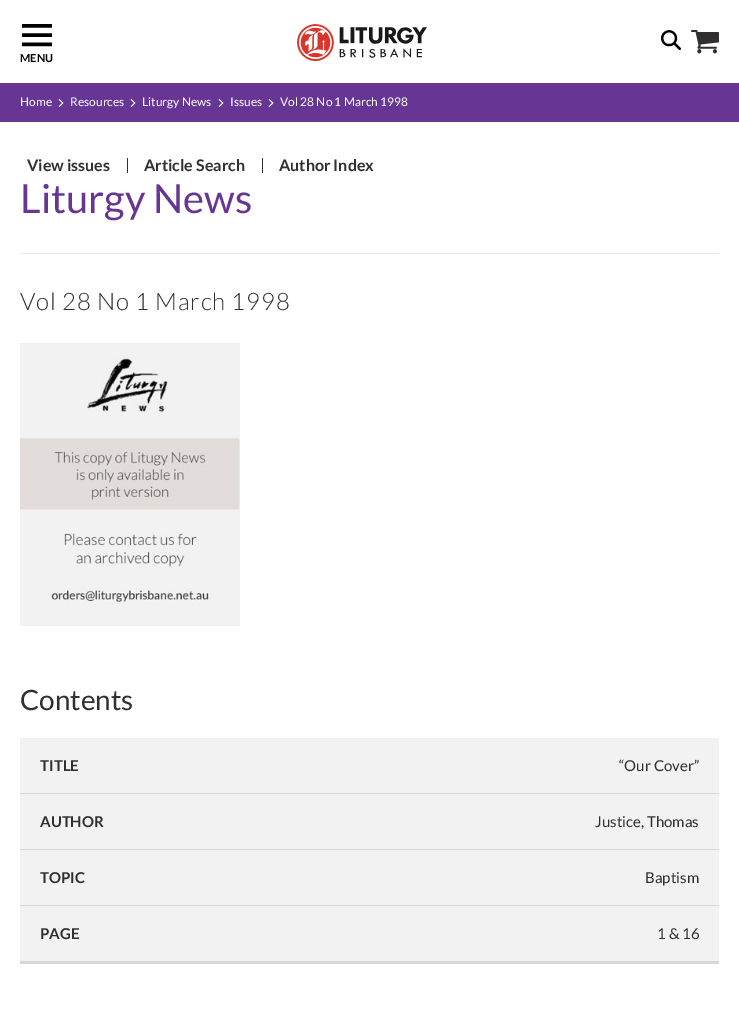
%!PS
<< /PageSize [739 1011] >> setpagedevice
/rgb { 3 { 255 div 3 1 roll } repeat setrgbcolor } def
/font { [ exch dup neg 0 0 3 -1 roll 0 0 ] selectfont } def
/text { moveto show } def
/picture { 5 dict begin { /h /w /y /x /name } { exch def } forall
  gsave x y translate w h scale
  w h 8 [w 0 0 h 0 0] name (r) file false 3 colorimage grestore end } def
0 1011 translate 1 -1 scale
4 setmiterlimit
255 255 255 rgb
0 0 739 1011 rectfill
(img_01.rgb) 297 24 130 37 picture
(img_02.rgb) 661 30 20 20 picture
(img_03.rgb) 691 30 28 24 picture
(img_04.rgb) 22 24 30 23 picture
103 54 148 rgb
0 83 739 39 rectfill
(img_05.rgb) 58 99 6 8 picture
(img_05.rgb) 130 99 6 8 picture
(img_05.rgb) 218 99 6 8 picture
(img_05.rgb) 268 99 6 8 picture
49 47 47 rgb
127 158 1 15 rectfill
262 158 1 15 rectfill
235 235 235 rgb
20 253 699 1 rectfill
(img_06.rgb) 20 343 220 283 picture
214 214 214 rgb
20 961 699 3 rectfill
242 242 242 rgb
20 738 699 55 rectfill
214 214 214 rgb
20 793 699 1 rectfill
242 242 242 rgb
20 794 699 55 rectfill
214 214 214 rgb
20 849 699 1 rectfill
242 242 242 rgb
20 850 699 55 rectfill
214 214 214 rgb
20 905 699 1 rectfill
242 242 242 rgb
20 906 699 55 rectfill
/Lato-Bold 11 font
0 0 0 rgb
(MENU) 20 62 text
/Lato-Regular 12 font
255 255 255 rgb
(Home) 20 106 text
(Resources) 70 106 text
(Liturgy News) 142 106 text
(Issues) 230 106 text
(Vol 28 No 1 March 1998) 280 106 text
/Lato-Bold 16 font
49 47 47 rgb
(View issues) 27 171 text
(Article Search) 144 171 text
(Author Index) 279 171 text
/Lato-Regular 40 font
103 54 148 rgb
(Liturgy News) 20 213 text
/Lato-Light 24 font
49 47 47 rgb
20 310 moveto 0.8 0 (Vol 28 No 1 March 1998) ashow
/Lato-Regular 28 font
(Contents) 20 710 text
/Lato-Bold 15 font
(TITLE) 40 771 text
/Lato-Regular 15 font
(“Our Cover”) 619 771 text
/Lato-Bold 15 font
(AUTHOR) 40 827 text
/Lato-Regular 15 font
(Justice, Thomas) 595 827 text
/Lato-Bold 15 font
(TOPIC) 40 883 text
/Lato-Regular 15 font
(Baptism) 645 883 text
/Lato-Bold 15 font
(PAGE) 40 939 text
/Lato-Regular 15 font
(1 & 16) 657 939 text
showpage
